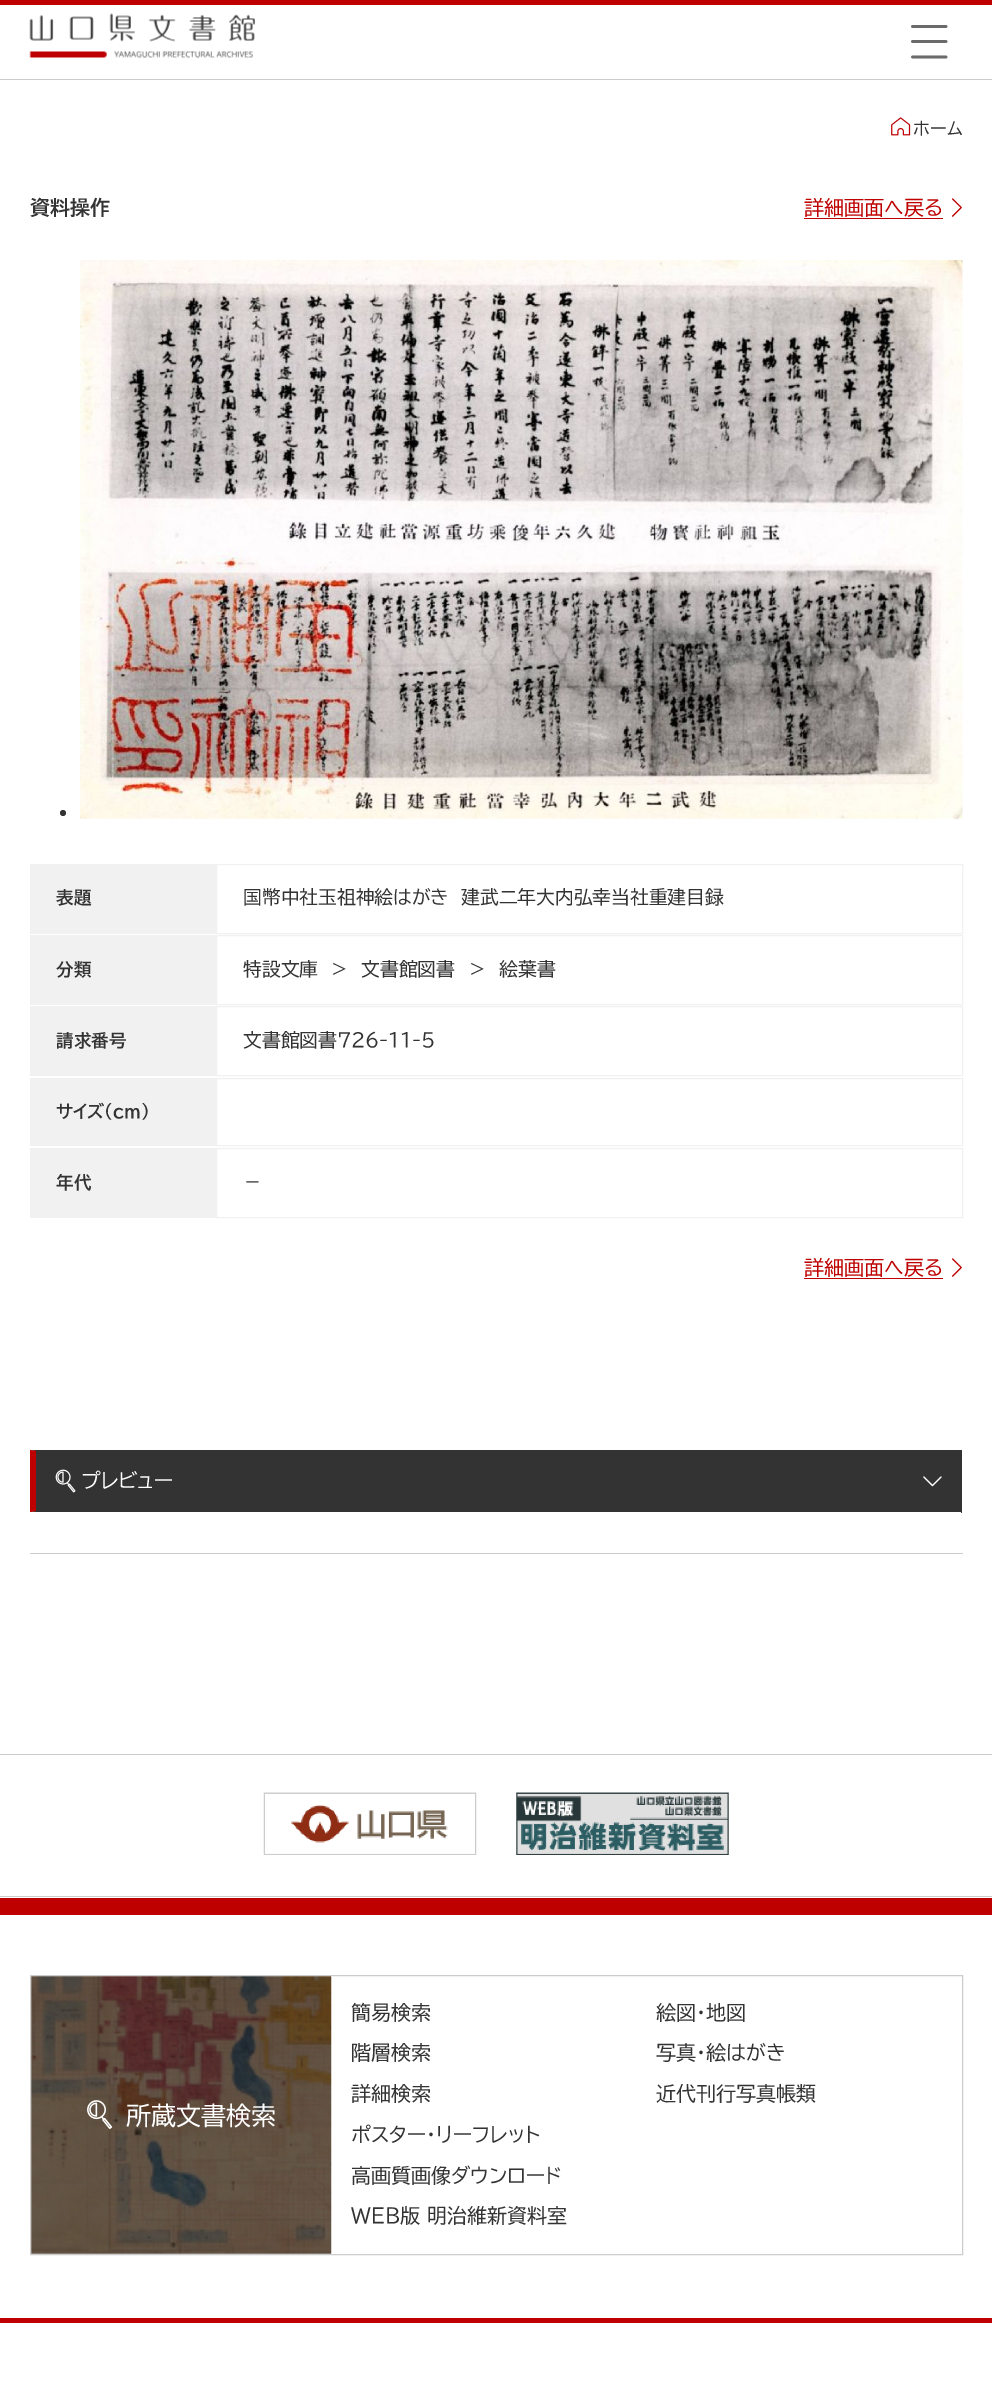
%!PS
<< /PageSize [992 2392] >> setpagedevice
/rgb { 3 { 255 div 3 1 roll } repeat setrgbcolor } def
/font { [ exch dup neg 0 0 3 -1 roll 0 0 ] selectfont } def
/text { moveto show } def
/circle { newpath 0 360 arc closepath } def
/picture { 5 dict begin { /h /w /y /x /name } { exch def } forall
  gsave x y translate w h scale
  w h 8 [w 0 0 h 0 0] name (r) file false 3 colorimage grestore end } def
0 2392 translate 1 -1 scale
4 setmiterlimit
255 255 255 rgb
0 0 992 2392 rectfill
190 0 0 rgb
0 0 992 5 rectfill
204 204 204 rgb
0 79 992 1 rectfill
(img_01.rgb) 29 13 226 45 picture
107 107 107 rgb
2.7 setlinewidth
1 setlinecap
1 setlinejoin
912.5 41.5 moveto 33.5 0 rlineto 912.5 57 moveto 33.5 0 rlineto 912.5 26.5 moveto 33.5 0 rlineto stroke
(img_02.rgb) 891 117 20 19 picture
190 0 0 rgb
804 218 139 1 rectfill
(img_03.rgb) 951 198 11 19 picture
51 51 51 rgb
63 813 3 circle fill
(img_04.rgb) 80 260 883 559 picture
241 241 241 rgb
30 864 186 70 rectfill
1 setlinewidth
0 setlinecap
0 setlinejoin
216.5 864.5 746 69 rectstroke
30 935 186 70 rectfill
216.5 935.5 746 69 rectstroke
30 1006 186 70 rectfill
216.5 1006.5 746 69 rectstroke
30 1078 186 68 rectfill
216.5 1078.5 746 67 rectstroke
30 1148 186 70 rectfill
216.5 1148.5 746 69 rectstroke
190 0 0 rgb
804 1278 139 1 rectfill
(img_03.rgb) 951 1258 11 19 picture
51 51 51 rgb
36 1451 925 60 rectfill
30 1450 moveto 932 0 rlineto -1 1 rlineto -925 0 rlineto closepath fill
961 1450 1 63 rectfill
962 1512 moveto -932 0 rlineto 6 -1 rlineto 925 0 rlineto closepath fill
190 0 0 rgb
30 1512 moveto 0 -62 rlineto 6 1 rlineto 0 60 rlineto closepath fill
(img_05.rgb) 55 1469 21 24 picture
(img_06.rgb) 923 1476 19 11 picture
204 204 204 rgb
30 1553 933 1 rectfill
0 1754 992 1 rectfill
0 1896 992 1 rectfill
(img_07.rgb) 263 1792 214 63 picture
(img_08.rgb) 516 1792 213 63 picture
190 0 0 rgb
0 1898 992 17 rectfill
204 204 204 rgb
30.5 1975.5 932 279 rectstroke
(img_09.rgb) 31 1976 301 278 picture
(img_10.rgb) 87 2100 26 29 picture
190 0 0 rgb
0 2318 992 5 rectfill
/BIZUDPGothic-Regular 17.5 font
51 51 51 rgb
(ホーム) 913 135 text
/BIZUDPGothic-Bold 20 font
(資料操作) 30 215 text
/BIZUDPGothic-Regular 20 font
190 0 0 rgb
(詳細画面へ戻る) 804 215 text
/BIZUDPGothic-Bold 17.5 font
51 51 51 rgb
(表題) 56 904 text
/BIZUDPGothic-Regular 18.75 font
(国幣中社玉祖神絵はがき　建武二年大内弘幸当社重建目録) 243 904 text
/BIZUDPGothic-Bold 17.5 font
(分類) 56 976 text
/BIZUDPGothic-Regular 18.75 font
(特設文庫) 243 976 text
(＞) 330 976 text
(文書館図書) 361 976 text
(＞) 468 976 text
(絵葉書) 499 976 text
/BIZUDPGothic-Bold 17.5 font
(請求番号) 56 1047 text
/BIZUDPGothic-Regular 18.75 font
(文書館図書726-11-5) 243 1047 text
/BIZUDPGothic-Bold 17.5 font
(サイズ（cm）) 56 1118 text
(年代) 56 1189 text
/BIZUDPGothic-Regular 18.75 font
(－) 243 1189 text
/BIZUDPGothic-Regular 20 font
190 0 0 rgb
(詳細画面へ戻る) 804 1275 text
255 255 255 rgb
(プレビュー) 81 1488 text
/BIZUDPGothic-Regular 25 font
(所蔵文書検索) 126 2125 text
/BIZUDPGothic-Regular 20 font
51 51 51 rgb
(簡易検索) 351 2020 text
(絵図・地図) 656 2020 text
(階層検索) 351 2060 text
(写真・絵はがき) 656 2060 text
(詳細検索) 351 2101 text
(近代刊行写真帳類) 656 2101 text
(ポスター・リーフレット) 351 2142 text
(高画質画像ダウンロード) 351 2183 text
(WEB版 明治維新資料室) 351 2223 text
showpage
